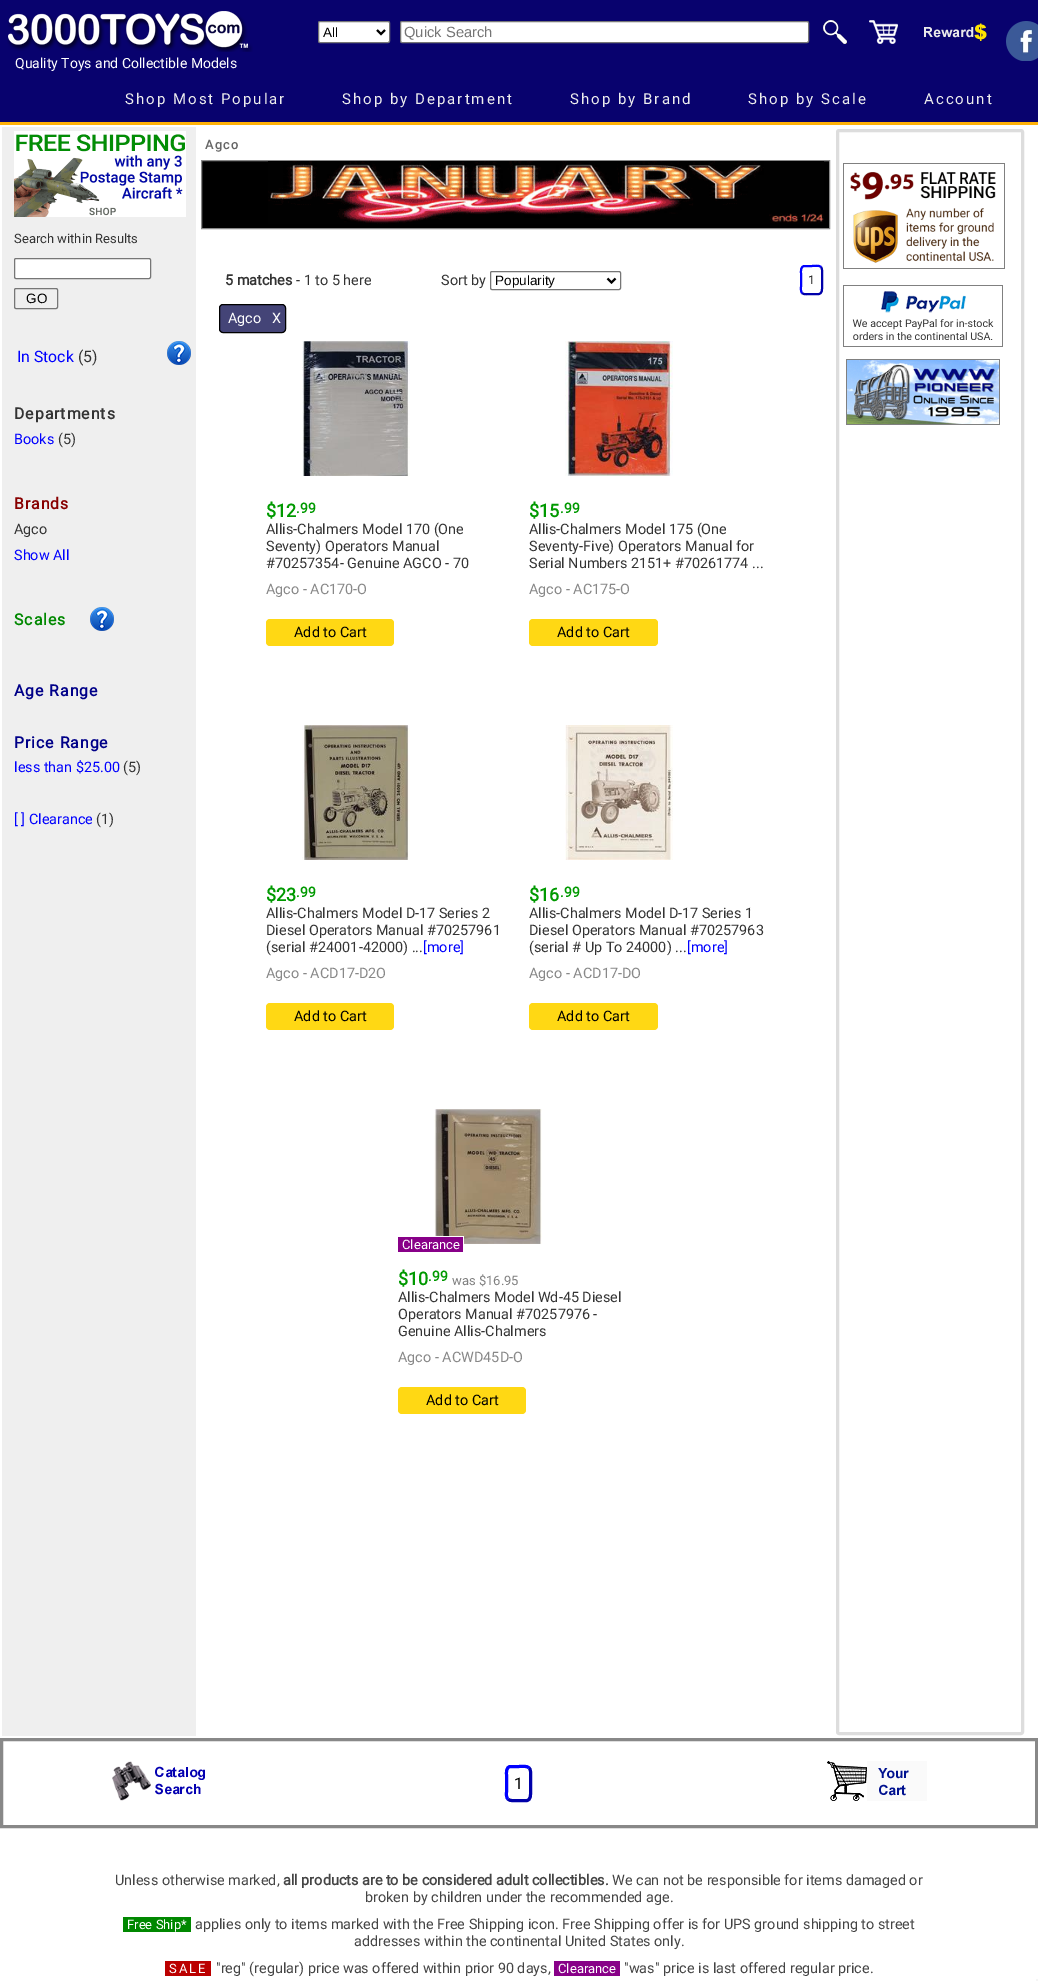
%!PS
<< /PageSize [1038 1981] >> setpagedevice
/rgb { 3 { 255 div 3 1 roll } repeat setrgbcolor } def
/font { [ exch dup neg 0 0 3 -1 roll 0 0 ] selectfont } def
/text { moveto show } def
/roundrect { 5 dict begin { /r /h /w /y /x } { exch def } forall
  x r add y moveto x w add y 2 copy h add r arct x w add y h add x 1 index r arct
  x y h add x y r arct x y 2 copy exch w add exch r arct closepath end } def
/picture { 5 dict begin { /h /w /y /x /name } { exch def } forall
  gsave x y translate w h scale
  w h 8 [w 0 0 h 0 0] name (r) file false 3 colorimage grestore end } def
0 1981 translate 1 -1 scale
4 setmiterlimit
255 255 255 rgb
0 0 1038 1981 rectfill
8 2 110 rgb
0 0 1038 122 rectfill
255 177 8 rgb
0 122 1038 3 rectfill
255 255 255 rgb
318.5 21.5 71 21 1.5 roundrect gsave fill grestore
118 118 118 rgb
stroke
0 0 0 rgb
2 setlinewidth
377 30 moveto 4 4 rlineto 4 -4 rlineto stroke
255 255 255 rgb
400.5 21.5 408 21 1.5 roundrect gsave fill grestore
118 118 118 rgb
1 setlinewidth
stroke
(img_01.rgb) 823 20 24 24 picture
(img_02.rgb) 869 20 29 24 picture
(img_03.rgb) 924 23 63 18 picture
(img_04.rgb) 1006 21 32 40 picture
(img_05.rgb) 7 11 246 41 picture
239 239 239 rgb
2 127 194 1609 rectfill
(img_06.rgb) 14 131 172 86 picture
255 255 255 rgb
14.5 258.5 136 20 1.5 roundrect gsave fill grestore
118 118 118 rgb
stroke
14.5 288.5 43 20 1.5 roundrect stroke
(img_07.rgb) 167 341 24 24 picture
(img_07.rgb) 90 607 24 24 picture
0 0 0 rgb
201.5 160.5 moveto 628 0 rlineto 0 68 rlineto -628 0 rlineto closepath gsave fill grestore
136 136 136 rgb
stroke
(img_08.rgb) 268 161 556 63 picture
118 118 118 rgb
490.5 271.5 130 18 1.5 roundrect stroke
0 0 0 rgb
2 setlinewidth
607.5 278.5 moveto 4 4 rlineto 4 -4 rlineto stroke
0 0 170 rgb
821 267 moveto 1.5 2 1 4.5 1 6.5 rcurveto 0 13 rlineto 0 3 0.5 6.5 -3 7.5 rcurveto -7.5 0 rlineto -2.5 0 -7.5 1 -9.5 -1 rcurveto stroke
0 0 255 rgb
802 293 moveto -1.5 -2 -1 -4.5 -1 -6.5 rcurveto 0 -13 rlineto 0 -3 -0.5 -6.5 3 -7.5 rcurveto 7.5 0 rlineto 2.5 0 7.5 -1 9.5 1 rcurveto stroke
68 68 119 rgb
219.5 304.5 66 28 3.5 roundrect gsave fill grestore
0 0 0 rgb
1 setlinewidth
stroke
(img_09.rgb) 302 341 108 135 picture
255 216 20 rgb
266 619 128 27 4 roundrect fill
(img_10.rgb) 565 341 108 135 picture
529 619 129 27 4 roundrect fill
(img_11.rgb) 302 725 108 135 picture
266 1003 128 27 4 roundrect fill
(img_12.rgb) 565 725 108 135 picture
529 1003 129 27 4 roundrect fill
(img_13.rgb) 434 1109 108 135 picture
136 0 136 rgb
398 1237 65 15 rectfill
255 255 255 rgb
434 1236 30 1 rectfill
463 1236 1 16 rectfill
255 216 20 rgb
398 1387 128 27 4 roundrect fill
221 221 221 rgb
3 setlinewidth
837.5 130.5 185 1603 1.5 roundrect stroke
(img_14.rgb) 843 163 162 262 picture
136 136 136 rgb
1.5 1739.5 1035 87 rectstroke
(img_15.rgb) 112 1761 93 40 picture
0 0 170 rgb
529 1768 moveto 2 1.5 1.5 5 1.5 7 rcurveto 0 17 rlineto 0 3 0.5 7.5 -3.5 8.5 rcurveto -8.5 0 rlineto -3 0 -8.5 1 -10.5 -1.5 rcurveto stroke
0 0 255 rgb
508 1799 moveto -2 -1.5 -1.5 -5 -1.5 -7 rcurveto 0 -17 rlineto 0 -3 -0.5 -7.5 3.5 -8.5 rcurveto 8.5 0 rlineto 3 0 8.5 -1 10.5 1.5 rcurveto stroke
(img_16.rgb) 827 1761 100 40 picture
0 136 0 rgb
123 1917 68 15 rectfill
187 0 0 rgb
165 1961 46 15 rectfill
136 0 136 rgb
554 1961 66 15 rectfill
245 245 245 rgb
1036 1979 2 2 rectfill
/LiberationSans-Regular 13.5 font
0 0 0 rgb
(All) 323 37 text
/LiberationSans-Regular 14.75 font
117 117 117 rgb
(Quick Search) 404 37 text
/Roboto-Regular 14 font
255 255 255 rgb
(Quality Toys and Collectible Models) 15 68 text
/Roboto-Regular 15 font
238 238 238 rgb
125 104 moveto 2 0 (Shop Most Popular) ashow
342 104 moveto 2 0 (Shop by Department) ashow
570 104 moveto 2 0 (Shop by Brand) ashow
748 104 moveto 2 0 (Shop by Scale) ashow
924 104 moveto 2 0 (Account) ashow
/Roboto-Regular 13 font
51 51 51 rgb
(Search within Results) 14 243 text
/LiberationSans-Regular 13.5 font
0 0 0 rgb
(GO) 26 303 text
/Roboto-Regular 15.75 font
0 0 255 rgb
(In Stock) 17 362 text
51 51 51 rgb
(\(5\)) 78 362 text
/Roboto-Bold 15.75 font
14 419 moveto 1 0 (Departments) ashow
/Roboto-Regular 14.4 font
0 0 255 rgb
(Books) 14 444 text
51 51 51 rgb
(\(5\)) 58 444 text
/Roboto-Bold 15.75 font
136 0 0 rgb
14 509 moveto 1 0 (Brands) ashow
/Roboto-Regular 14.4 font
51 51 51 rgb
(Agco) 14 534 text
0 0 255 rgb
(Show All) 14 560 text
/Roboto-Bold 15.75 font
0 136 0 rgb
14 625 moveto 1 0 (Scales) ashow
0 0 136 rgb
14 696 moveto 1 0 (Age Range) ashow
14 748 moveto 1 0 (Price Range) ashow
/Roboto-Regular 14.4 font
0 0 255 rgb
(less than $25.00) 14 772 text
51 51 51 rgb
(\(5\)) 123 772 text
0 0 255 rgb
([ ] Clearance) 14 824 text
51 51 51 rgb
(\(1\)) 96 824 text
/Roboto-Medium 13 font
102 102 102 rgb
205 149 moveto 1 0 (Agco) ashow
/Roboto-Bold 14.4 font
51 51 51 rgb
(5 matches) 225 285 text
/Roboto-Regular 14.4 font
(- 1 to 5 here) 296 285 text
(Sort by) 441 285 text
/LiberationSans-Regular 13.5 font
0 0 0 rgb
(Popularity) 495 285 text
/Roboto-Regular 12 font
34 34 34 rgb
(1) 808 284 text
/Roboto-Regular 14.4 font
255 255 255 rgb
(Agco) 228 323 text
(Χ) 272 323 text
/Roboto-Bold 18 font
0 153 0 rgb
($12) 266 517 text
/Roboto-Bold 14 font
(.99) 296 513 text
/Roboto-Regular 14.4 font
51 51 51 rgb
(Allis-Chalmers Model 170 \(One) 266 534 text
(Seventy\) Operators Manual) 266 551 text
(#70257354- Genuine AGCO - 70) 266 568 text
136 136 136 rgb
(Agco - AC170-O) 266 594 text
0 0 0 rgb
(Add to Cart) 294 637 text
/Roboto-Bold 18 font
0 153 0 rgb
($15) 529 517 text
/Roboto-Bold 14 font
(.99) 560 513 text
/Roboto-Regular 14.4 font
51 51 51 rgb
(Allis-Chalmers Model 175 \(One) 529 534 text
(Seventy-Five\) Operators Manual for) 529 551 text
(Serial Numbers 2151+ #70261774 ...) 529 568 text
136 136 136 rgb
(Agco - AC175-O) 529 594 text
0 0 0 rgb
(Add to Cart) 557 637 text
/Roboto-Bold 18 font
0 153 0 rgb
($23) 266 901 text
/Roboto-Bold 14 font
(.99) 296 897 text
/Roboto-Regular 14.4 font
51 51 51 rgb
(Allis-Chalmers Model D-17 Series 2) 266 918 text
(Diesel Operators Manual #70257961) 266 935 text
(\(serial #24001-42000\) ...) 266 952 text
0 0 255 rgb
([more]) 423 952 text
136 136 136 rgb
(Agco - ACD17-D2O) 266 978 text
0 0 0 rgb
(Add to Cart) 294 1021 text
/Roboto-Bold 18 font
0 153 0 rgb
($16) 529 901 text
/Roboto-Bold 14 font
(.99) 560 897 text
/Roboto-Regular 14.4 font
51 51 51 rgb
(Allis-Chalmers Model D-17 Series 1) 529 918 text
(Diesel Operators Manual #70257963) 529 935 text
(\(serial # Up To 24000\) ...) 529 952 text
0 0 255 rgb
([more]) 687 952 text
136 136 136 rgb
(Agco - ACD17-DO) 529 978 text
0 0 0 rgb
(Add to Cart) 557 1021 text
/Roboto-Regular 13 font
255 255 255 rgb
(Clearance) 402 1249 text
/Roboto-Bold 18 font
0 153 0 rgb
($10) 398 1285 text
/Roboto-Bold 14 font
(.99) 428 1281 text
/Roboto-Regular 13 font
128 128 128 rgb
(was $16.95) 452 1285 text
/Roboto-Regular 14.4 font
51 51 51 rgb
(Allis-Chalmers Model Wd-45 Diesel) 398 1302 text
(Operators Manual #70257976 -) 398 1319 text
(Genuine Allis-Chalmers) 398 1336 text
136 136 136 rgb
(Agco - ACWD45D-O) 398 1362 text
0 0 0 rgb
(Add to Cart) 426 1405 text
/Roboto-Regular 16 font
(1) 514 1789 text
/Roboto-Regular 14.4 font
68 68 68 rgb
(Unless otherwise marked,) 115 1885 text
/Roboto-Bold 14.4 font
(all products are to be considered adult collectibles.) 283 1885 text
/Roboto-Regular 14.4 font
(We can not be responsible for items damaged or) 612 1885 text
(broken by children under the recommended age.) 365 1902 text
/Roboto-Regular 13 font
255 255 255 rgb
(Free Ship*) 127 1929 text
/Roboto-Regular 14.4 font
68 68 68 rgb
(applies only to items marked with the Free Shipping icon. Free Shipping offer is for UPS ground shipping to street) 195 1929 text
(addresses within the continental United States only.) 354 1946 text
/Roboto-Regular 13 font
255 255 255 rgb
169 1973 moveto 2 0 (SALE) ashow
/Roboto-Regular 14.4 font
68 68 68 rgb
("reg" \(regular\) price was offered within prior 90 days,) 216 1973 text
/Roboto-Regular 13 font
255 255 255 rgb
(Clearance) 558 1973 text
/Roboto-Regular 14.4 font
68 68 68 rgb
("was" price is last offered regular price.) 624 1973 text
showpage
